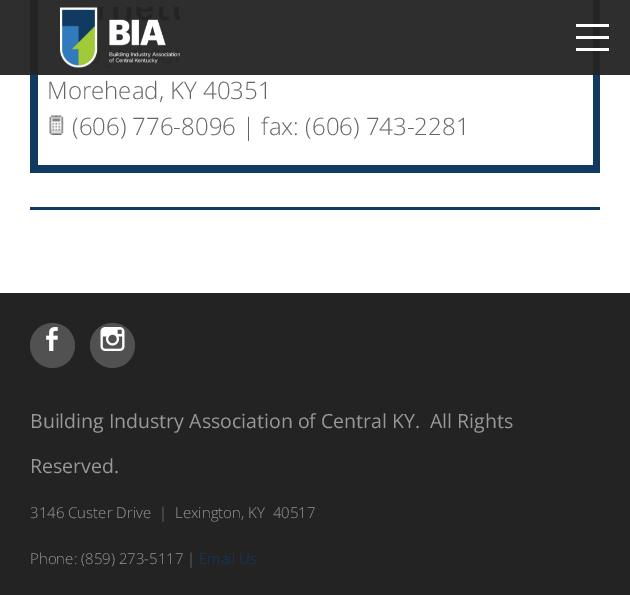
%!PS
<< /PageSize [630 595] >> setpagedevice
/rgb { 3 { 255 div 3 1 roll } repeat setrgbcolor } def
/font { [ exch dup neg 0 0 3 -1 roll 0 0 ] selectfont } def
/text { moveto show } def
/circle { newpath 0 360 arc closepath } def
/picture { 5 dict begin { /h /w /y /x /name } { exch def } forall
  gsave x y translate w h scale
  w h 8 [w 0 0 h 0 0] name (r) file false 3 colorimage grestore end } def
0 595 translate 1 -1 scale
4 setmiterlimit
35 35 35 rgb
0 0 630 595 rectfill
46 46 46 rgb
0 0 630 75 rectfill
34 36 38 rgb
30 0 570 75 rectfill
46 46 46 rgb
38 0 555 75 rectfill
(img_01.rgb) 60 7 120 61 picture
255 255 255 rgb
576 36 33 3 rectfill
576 24 33 3 rectfill
576 48 33 3 rectfill
0 75 630 218 rectfill
17 58 97 rgb
30 75 570 98 rectfill
255 255 255 rgb
38 75 555 90 rectfill
(img_02.rgb) 49 115 15 20 picture
17 58 97 rgb
30 207 570 3 rectfill
81 81 81 rgb
52.5 345.5 22.5 circle fill
(img_03.rgb) 46 327 12 24 picture
112.5 345.5 22.5 circle fill
(img_04.rgb) 100 327 25 24 picture
/OpenSans-Light 24 font
102 102 102 rgb
(Morehead, KY 40351) 47 99 text
(\(606\) 776-8096 | fax: \(606\) 743-2281) 72 135 text
/OpenSans-Regular 19.5 font
153 153 153 rgb
(Building Industry Association of Central KY.  All Rights) 30 428 text
(Reserved.) 30 473 text
/OpenSans-Light 15 font
(3146 Custer Drive  |  Lexington, KY  40517) 30 518 text
(Phone: \(859\) 273-5117 |) 30 564 text
17 58 97 rgb
(Email Us) 199 564 text
showpage
